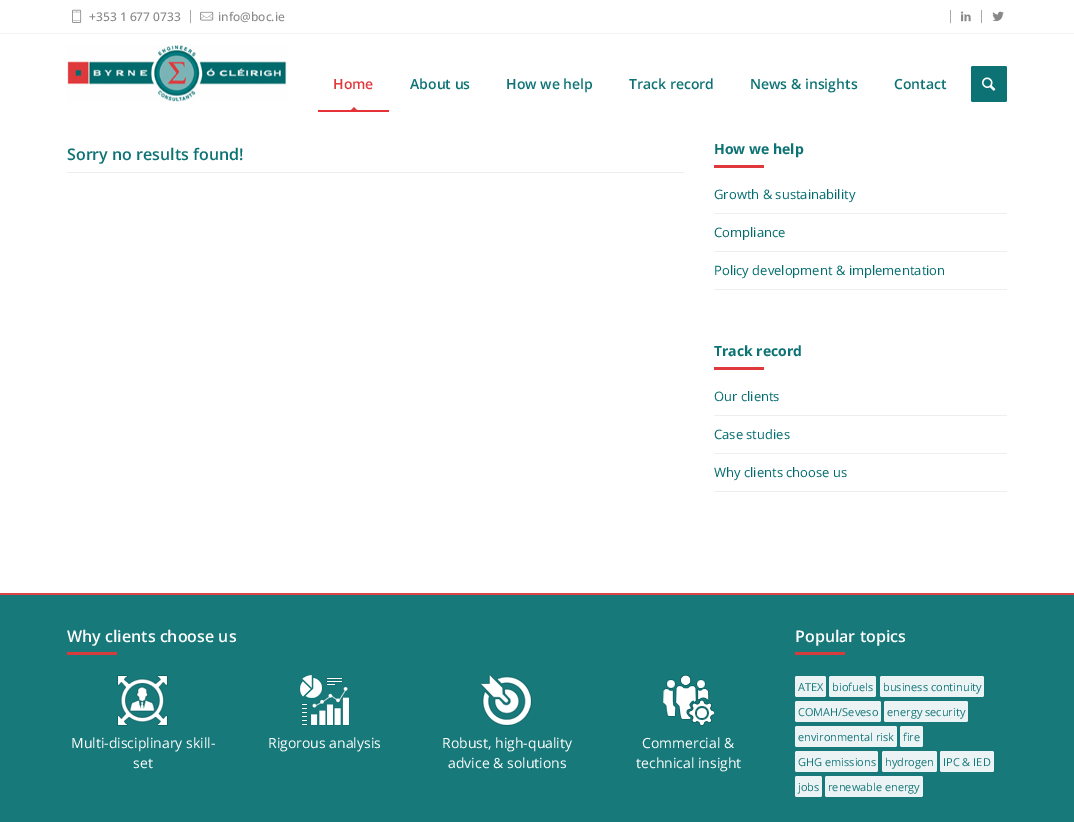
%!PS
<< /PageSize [1074 822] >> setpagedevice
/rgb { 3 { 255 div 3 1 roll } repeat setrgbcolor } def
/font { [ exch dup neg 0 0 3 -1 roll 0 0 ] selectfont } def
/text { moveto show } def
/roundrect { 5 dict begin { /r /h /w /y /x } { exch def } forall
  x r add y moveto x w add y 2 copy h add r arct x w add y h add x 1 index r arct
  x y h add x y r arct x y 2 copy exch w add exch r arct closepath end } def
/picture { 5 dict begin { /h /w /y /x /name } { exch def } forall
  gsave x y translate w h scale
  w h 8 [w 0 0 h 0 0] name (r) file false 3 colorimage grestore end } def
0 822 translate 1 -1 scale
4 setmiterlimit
255 255 255 rgb
0 0 1074 822 rectfill
242 242 242 rgb
0 33 1074 1 rectfill
(img_01.rgb) 72 9 10 14 picture
(img_02.rgb) 200 11 14 10 picture
(img_03.rgb) 961 11 10 11 picture
(img_04.rgb) 992 11 12 11 picture
(img_05.rgb) 67 45 220 57 picture
230 49 54 rgb
318 110 71 2 rectfill
gsave
318 34 71 76 rectclip
222 58 59 rgb
354 107 moveto 3.5 3.5 rlineto -3.5 3.5 rlineto -3.5 -3.5 rlineto closepath fill
grestore
12 114 116 rgb
971 66 36 36 2 roundrect fill
(img_06.rgb) 982 77 14 14 picture
238 238 238 rgb
67 172 617 1 rectfill
223 57 59 rgb
714 165 50 3 rectfill
238 238 238 rgb
714 213 293 1 rectfill
714 251 293 1 rectfill
714 289 293 1 rectfill
223 57 59 rgb
714 367 50 3 rectfill
238 238 238 rgb
714 415 293 1 rectfill
714 453 293 1 rectfill
714 491 293 1 rectfill
24 121 123 rgb
0 595 1074 227 rectfill
223 68 69 rgb
0 593 1074 2 rectfill
212 60 62 rgb
67 652 50 3 rectfill
(img_07.rgb) 117 675 51 51 picture
(img_08.rgb) 299 675 51 51 picture
(img_09.rgb) 481 675 51 51 picture
(img_10.rgb) 663 675 51 51 picture
795 652 50 3 rectfill
235 243 244 rgb
795 676 31 21 2 roundrect fill
829 676 47 21 2 roundrect fill
880 676 104 21 2 roundrect fill
795 701 86 21 2 roundrect fill
884 701 84 21 2 roundrect fill
795 726 102 21 2 roundrect fill
900 726 23 21 2 roundrect fill
795 751 83 21 2 roundrect fill
882 751 55 21 2 roundrect fill
940 751 54 21 2 roundrect fill
795 776 27 21 2 roundrect fill
825 776 98 21 2 roundrect fill
/OpenSans-Medium 12 font
136 136 136 rgb
(+353 1 677 0733) 89 21 text
/OpenSans-Regular 13 font
170 170 170 rgb
(|) 187 20 text
/OpenSans-Medium 12 font
136 136 136 rgb
(info@boc.ie) 218 21 text
/OpenSans-Regular 13 font
170 170 170 rgb
(|) 947 20 text
(|) 978 20 text
/OpenSans-SemiBold 14 font
223 57 61 rgb
(Home) 333 89 text
12 114 116 rgb
(About us) 410 89 text
(How we help) 506 89 text
(Track record) 629 89 text
(News & insights) 750 89 text
(Contact) 894 89 text
/OpenSans-SemiBold 16 font
(Sorry no results found!) 67 160 text
/OpenSans-Bold 14 font
(How we help) 714 154 text
/OpenSans-Regular 13 font
0 107 109 rgb
(Growth & sustainability) 714 199 text
(Compliance) 714 237 text
(Policy development & implementation) 714 275 text
/OpenSans-Bold 14 font
12 114 116 rgb
(Track record) 714 356 text
/OpenSans-Regular 13 font
0 107 109 rgb
(Our clients) 714 401 text
(Case studies) 714 439 text
(Why clients choose us) 714 477 text
/OpenSans-SemiBold 16 font
255 255 255 rgb
(Why clients choose us) 67 642 text
/OpenSans-Regular 14 font
(Multi-disciplinary skill-) 71 748 text
(set) 133 768 text
(Rigorous analysis) 268 748 text
(Robust, high-quality) 442 748 text
(advice & solutions) 448 768 text
(Commercial &) 642 748 text
(technical insight) 636 768 text
/OpenSans-SemiBold 16 font
(Popular topics) 795 642 text
/OpenSans-Regular 11 font
22 119 122 rgb
(ATEX) 798 691 text
(biofuels) 832 691 text
(business continuity) 883 691 text
(COMAH/Seveso) 798 716 text
(energy security) 887 716 text
(environmental risk) 798 741 text
(fire) 903 741 text
(GHG emissions) 798 766 text
(hydrogen) 885 766 text
(IPC & IED) 943 766 text
(jobs) 798 791 text
(renewable energy) 828 791 text
showpage
